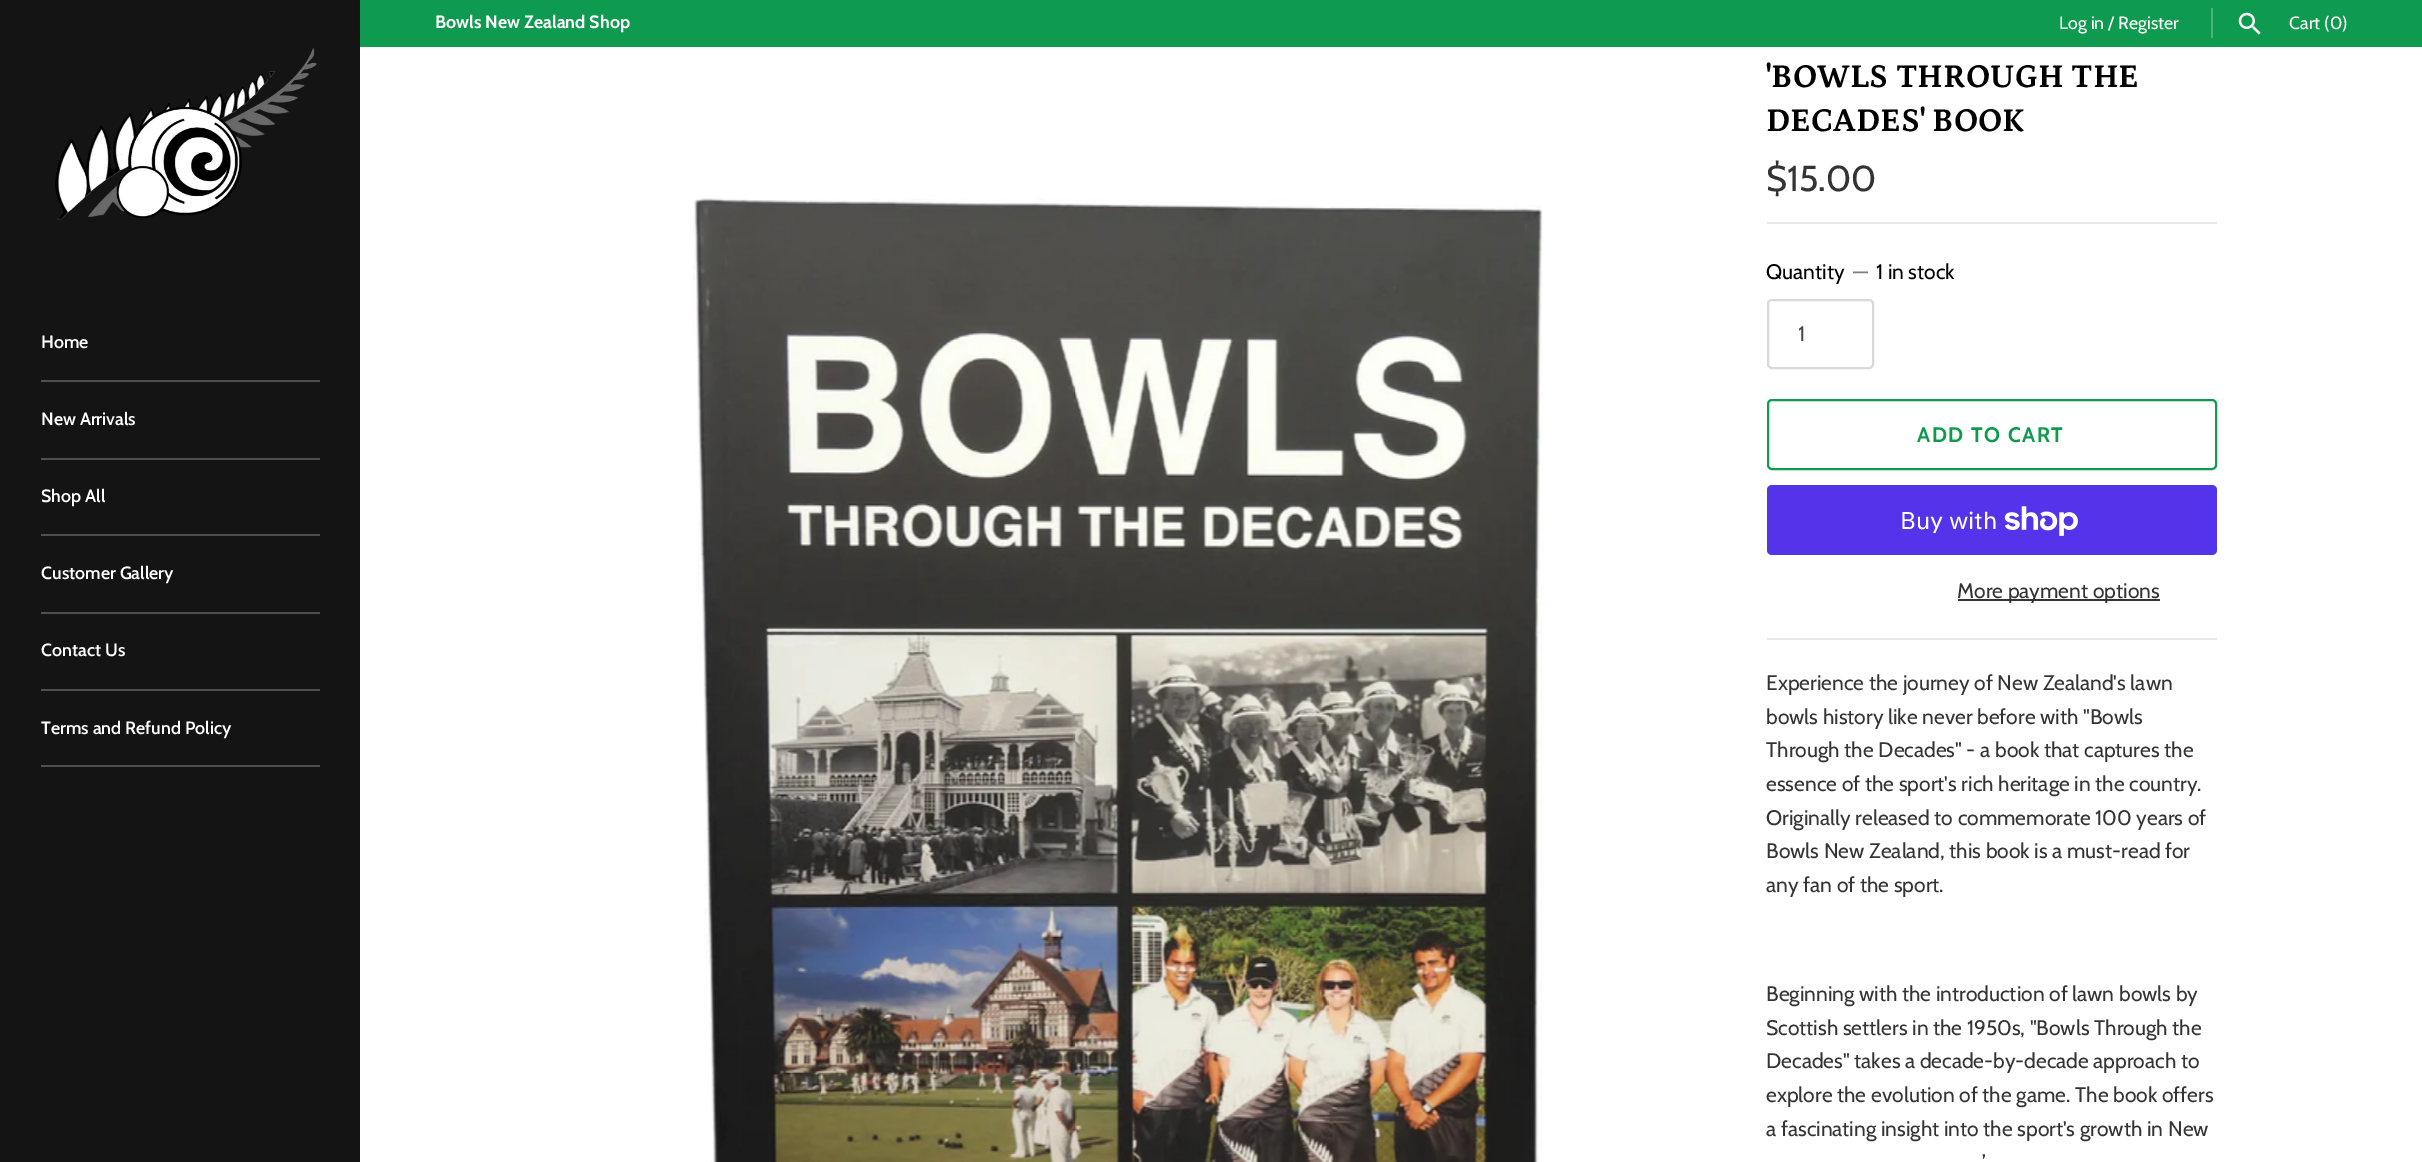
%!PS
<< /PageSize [2422 1162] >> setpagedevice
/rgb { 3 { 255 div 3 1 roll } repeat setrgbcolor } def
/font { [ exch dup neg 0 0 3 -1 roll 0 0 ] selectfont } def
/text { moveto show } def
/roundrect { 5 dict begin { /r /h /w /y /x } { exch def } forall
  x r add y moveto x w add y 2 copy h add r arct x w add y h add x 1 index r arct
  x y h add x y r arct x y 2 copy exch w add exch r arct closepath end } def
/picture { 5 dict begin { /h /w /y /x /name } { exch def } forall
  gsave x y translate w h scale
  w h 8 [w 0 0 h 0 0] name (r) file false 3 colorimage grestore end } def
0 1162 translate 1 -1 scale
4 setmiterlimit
255 255 255 rgb
0 0 2422 1162 rectfill
15 155 79 rgb
360 0 2062 47 rectfill
75 180 123 rgb
2211 8 2 30 rectfill
(img_01.rgb) 2238 12 23 23 picture
20 20 20 rgb
0 0 360 1162 rectfill
(img_02.rgb) 55 48 262 172 picture
79 79 79 rgb
41 380 279 2 rectfill
41 458 279 2 rectfill
41 534 279 2 rectfill
41 612 279 2 rectfill
41 689 279 2 rectfill
41 765 279 2 rectfill
(img_03.rgb) 693 198 850 964 picture
231 231 231 rgb
1767 222 450 2 rectfill
217 217 217 rgb
2 setlinewidth
1768 300 105 68 4 roundrect stroke
15 155 79 rgb
1768 400 448 69 4 roundrect stroke
84 51 235 rgb
1767 485 450 70 5 roundrect fill
(img_04.rgb) 2004 506 74 30 picture
52 52 52 rgb
1958 599 202 2 rectfill
231 231 231 rgb
1767 638 450 2 rectfill
/Cabin-Bold 17.8 font
255 255 255 rgb
(Bowls New Zealand Shop) 435 28 text
/Cabin-Regular 17.8 font
(Log in / Register) 2059 29 text
(Cart \(0\)) 2289 29 text
/Cabin-SemiBold 17.8 font
(Home) 41 348 text
(New Arrivals) 41 425 text
(Shop All) 41 502 text
(Customer Gallery) 41 579 text
(Contact Us) 41 656 text
(Terms and Refund Policy) 41 734 text
/Petrona-Bold 33.6 font
0 0 0 rgb
('BOWLS THROUGH THE) 1766 87 text
(DECADES' BOOK) 1766 131 text
/Cabin-Regular 36 font
52 52 52 rgb
($15.00) 1766 191 text
/Cabin-Regular 21 font
0 0 0 rgb
(Quantity) 1766 279 text
128 128 128 rgb
(—) 1853 279 text
0 0 0 rgb
(1 in stock) 1876 279 text
gsave
1799 321 43 26 rectclip
68 68 68 rgb
(1) 1798 341 text
grestore
/Cabin-Bold 21 font
15 155 79 rgb
1917 442 moveto 1.5 0 (ADD TO CART) ashow
/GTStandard-Regular 24 font
255 255 255 rgb
(Buy with) 1900 529 text
/Cabin-Regular 21 font
52 52 52 rgb
(More payment options) 1957 598 text
(Experience the journey of New Zealand's lawn) 1766 690 text
(bowls history like never before with "Bowls) 1766 724 text
(Through the Decades" - a book that captures the) 1766 757 text
(essence of the sport's rich heritage in the country.) 1766 791 text
(Originally released to commemorate 100 years of) 1766 825 text
(Bowls New Zealand, this book is a must-read for) 1766 858 text
(any fan of the sport.) 1766 892 text
(Beginning with the introduction of lawn bowls by) 1766 1001 text
(Scottish settlers in the 1950s, "Bowls Through the) 1766 1035 text
(Decades" takes a decade-by-decade approach to) 1766 1068 text
(explore the evolution of the game. The book offers) 1766 1102 text
(a fascinating insight into the sport's growth in New) 1766 1136 text
(’) 1982 1169 text
showpage
